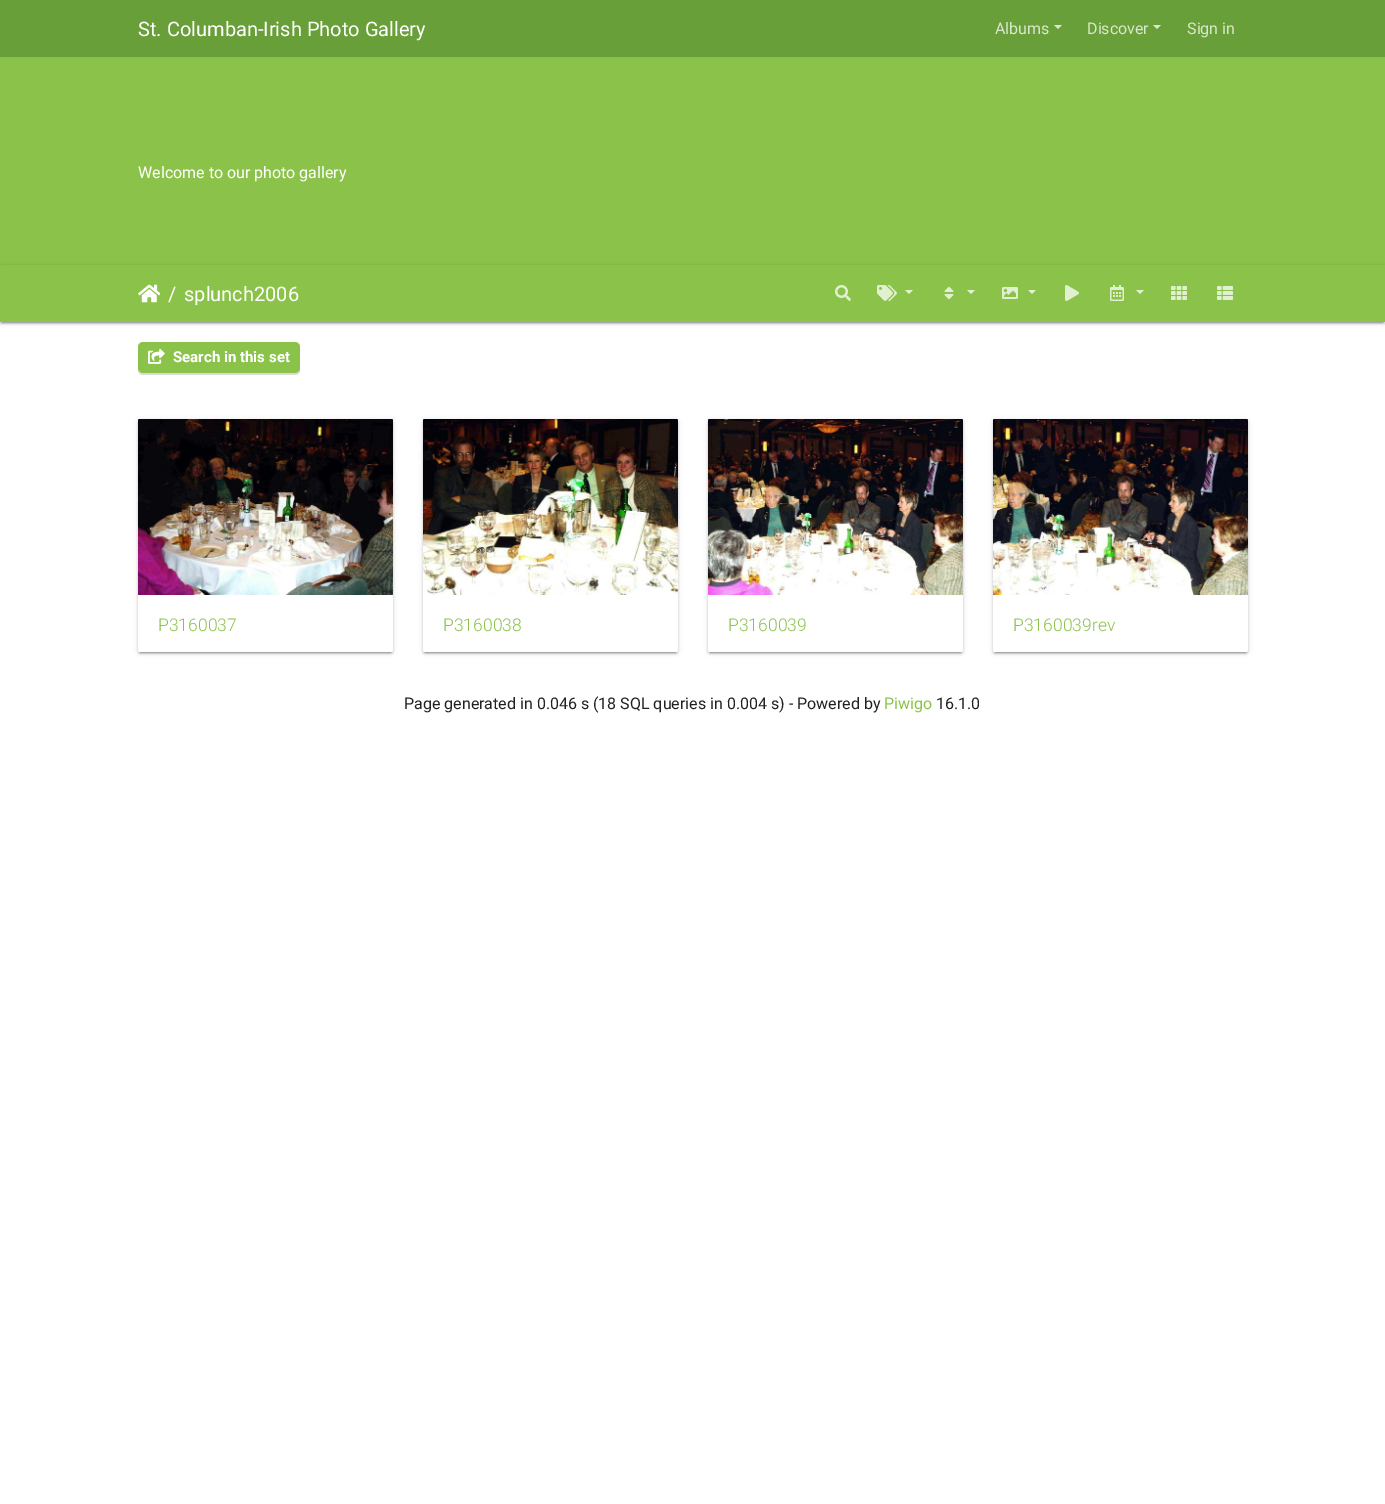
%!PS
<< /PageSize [1385 1504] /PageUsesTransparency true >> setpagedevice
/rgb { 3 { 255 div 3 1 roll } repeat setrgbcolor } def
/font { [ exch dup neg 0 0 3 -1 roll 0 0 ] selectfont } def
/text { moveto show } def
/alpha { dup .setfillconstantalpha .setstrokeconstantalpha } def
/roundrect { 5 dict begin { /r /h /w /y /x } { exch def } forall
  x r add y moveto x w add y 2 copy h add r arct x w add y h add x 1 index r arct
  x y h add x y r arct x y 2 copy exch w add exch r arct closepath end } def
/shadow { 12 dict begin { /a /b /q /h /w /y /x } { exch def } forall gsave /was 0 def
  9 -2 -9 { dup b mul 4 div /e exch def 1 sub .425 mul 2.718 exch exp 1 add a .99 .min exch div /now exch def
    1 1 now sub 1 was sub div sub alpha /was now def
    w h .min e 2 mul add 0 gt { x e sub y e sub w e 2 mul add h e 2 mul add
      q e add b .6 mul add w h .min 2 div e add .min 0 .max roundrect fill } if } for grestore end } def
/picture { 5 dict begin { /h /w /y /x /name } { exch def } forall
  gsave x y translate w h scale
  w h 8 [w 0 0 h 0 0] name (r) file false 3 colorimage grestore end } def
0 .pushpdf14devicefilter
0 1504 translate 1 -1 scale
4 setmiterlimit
255 255 255 rgb
0 0 1385 1504 rectfill
104 159 56 rgb
0 0 1385 57 rectfill
217 231 205 rgb
1054 25 moveto 8 0 rlineto -4 4 rlineto closepath fill
1153 25 moveto 8 0 rlineto -4 4 rlineto closepath fill
139 195 74 rgb
0 57 1385 208 rectfill
0 0 0 rgb
0 266 1385 57 0 2.5 0.12 shadow
2 270 1381 53 0 0.5 0.2 shadow
0 267 1385 57 0 1 0.14 shadow
139 195 74 rgb
0 265 1385 57 rectfill
(img_01.rgb) 138 284 22 19 picture
(img_02.rgb) 835 285 16 16 picture
(img_03.rgb) 877 285 20 16 picture
226 240 210 rgb
905 290 moveto 8 0 rlineto -4 4 rlineto closepath fill
(img_04.rgb) 944 286 10 14 picture
967 290 moveto 8 0 rlineto -4 4 rlineto closepath fill
(img_05.rgb) 1002 287 16 12 picture
1028 290 moveto 8 0 rlineto -4 4 rlineto closepath fill
(img_06.rgb) 1065 285 14 16 picture
(img_07.rgb) 1110 285 14 16 picture
1136 290 moveto 8 0 rlineto -4 4 rlineto closepath fill
(img_08.rgb) 1171 286 16 14 picture
(img_09.rgb) 1217 286 16 14 picture
219 219 219 rgb
138 368 moveto 0 2 rlineto 0 3 2 5 5 5 rcurveto 152 0 rlineto 3 0 5 -2 5 -5 rcurveto 0 -2 rlineto 0 3 -2 5 -5 5 rcurveto -152 0 rlineto -3 0 -5 -2 -5 -5 rcurveto closepath fill
139 195 74 rgb
138 342 162 31 5 roundrect fill
(img_10.rgb) 148 348 17 16 picture
0 0 0 rgb
138 420 255 233 2 2.5 0.12 shadow
140 424 251 229 0 0.5 0.2 shadow
138 421 255 233 2 1 0.14 shadow
255 255 255 rgb
138 419 255 233 2 roundrect fill
(img_11.rgb) 138 419 255 176 picture
0 0 0 rgb
423 420 255 233 2 2.5 0.12 shadow
425 424 251 229 0 0.5 0.2 shadow
423 421 255 233 2 1 0.14 shadow
255 255 255 rgb
423 419 255 233 2 roundrect fill
(img_12.rgb) 423 419 255 176 picture
0 0 0 rgb
708 420 255 233 2 2.5 0.12 shadow
710 424 251 229 0 0.5 0.2 shadow
708 421 255 233 2 1 0.14 shadow
255 255 255 rgb
708 419 255 233 2 roundrect fill
(img_13.rgb) 708 419 255 176 picture
0 0 0 rgb
993 420 255 233 2 2.5 0.12 shadow
995 424 251 229 0 0.5 0.2 shadow
993 421 255 233 2 1 0.14 shadow
255 255 255 rgb
993 419 255 233 2 roundrect fill
(img_14.rgb) 993 419 255 176 picture
/Roboto-Regular 20 font
(St. Columban-Irish Photo Gallery) 138 36 text
/Roboto-Regular 16 font
217 231 205 rgb
(Albums) 995 34 text
(Discover) 1087 34 text
(Sign in) 1187 34 text
255 255 255 rgb
(Welcome to our photo gallery) 138 178 text
/Roboto-Regular 20 font
(/) 168 301 text
(splunch2006) 184 301 text
/Roboto-Bold 15 font
(Search in this set) 173 362 text
/Roboto-Light 17.5 font
139 195 74 rgb
(P3160037) 158 631 text
(P3160038) 443 631 text
(P3160039) 728 631 text
(P3160039rev) 1013 631 text
/Roboto-Regular 16 font
33 33 33 rgb
(Page generated in 0.046 s \(18 SQL queries in 0.004 s\) - Powered by) 404 709 text
139 195 74 rgb
(Piwigo) 884 709 text
33 33 33 rgb
(16.1.0) 936 709 text
.poppdf14devicefilter showpage
